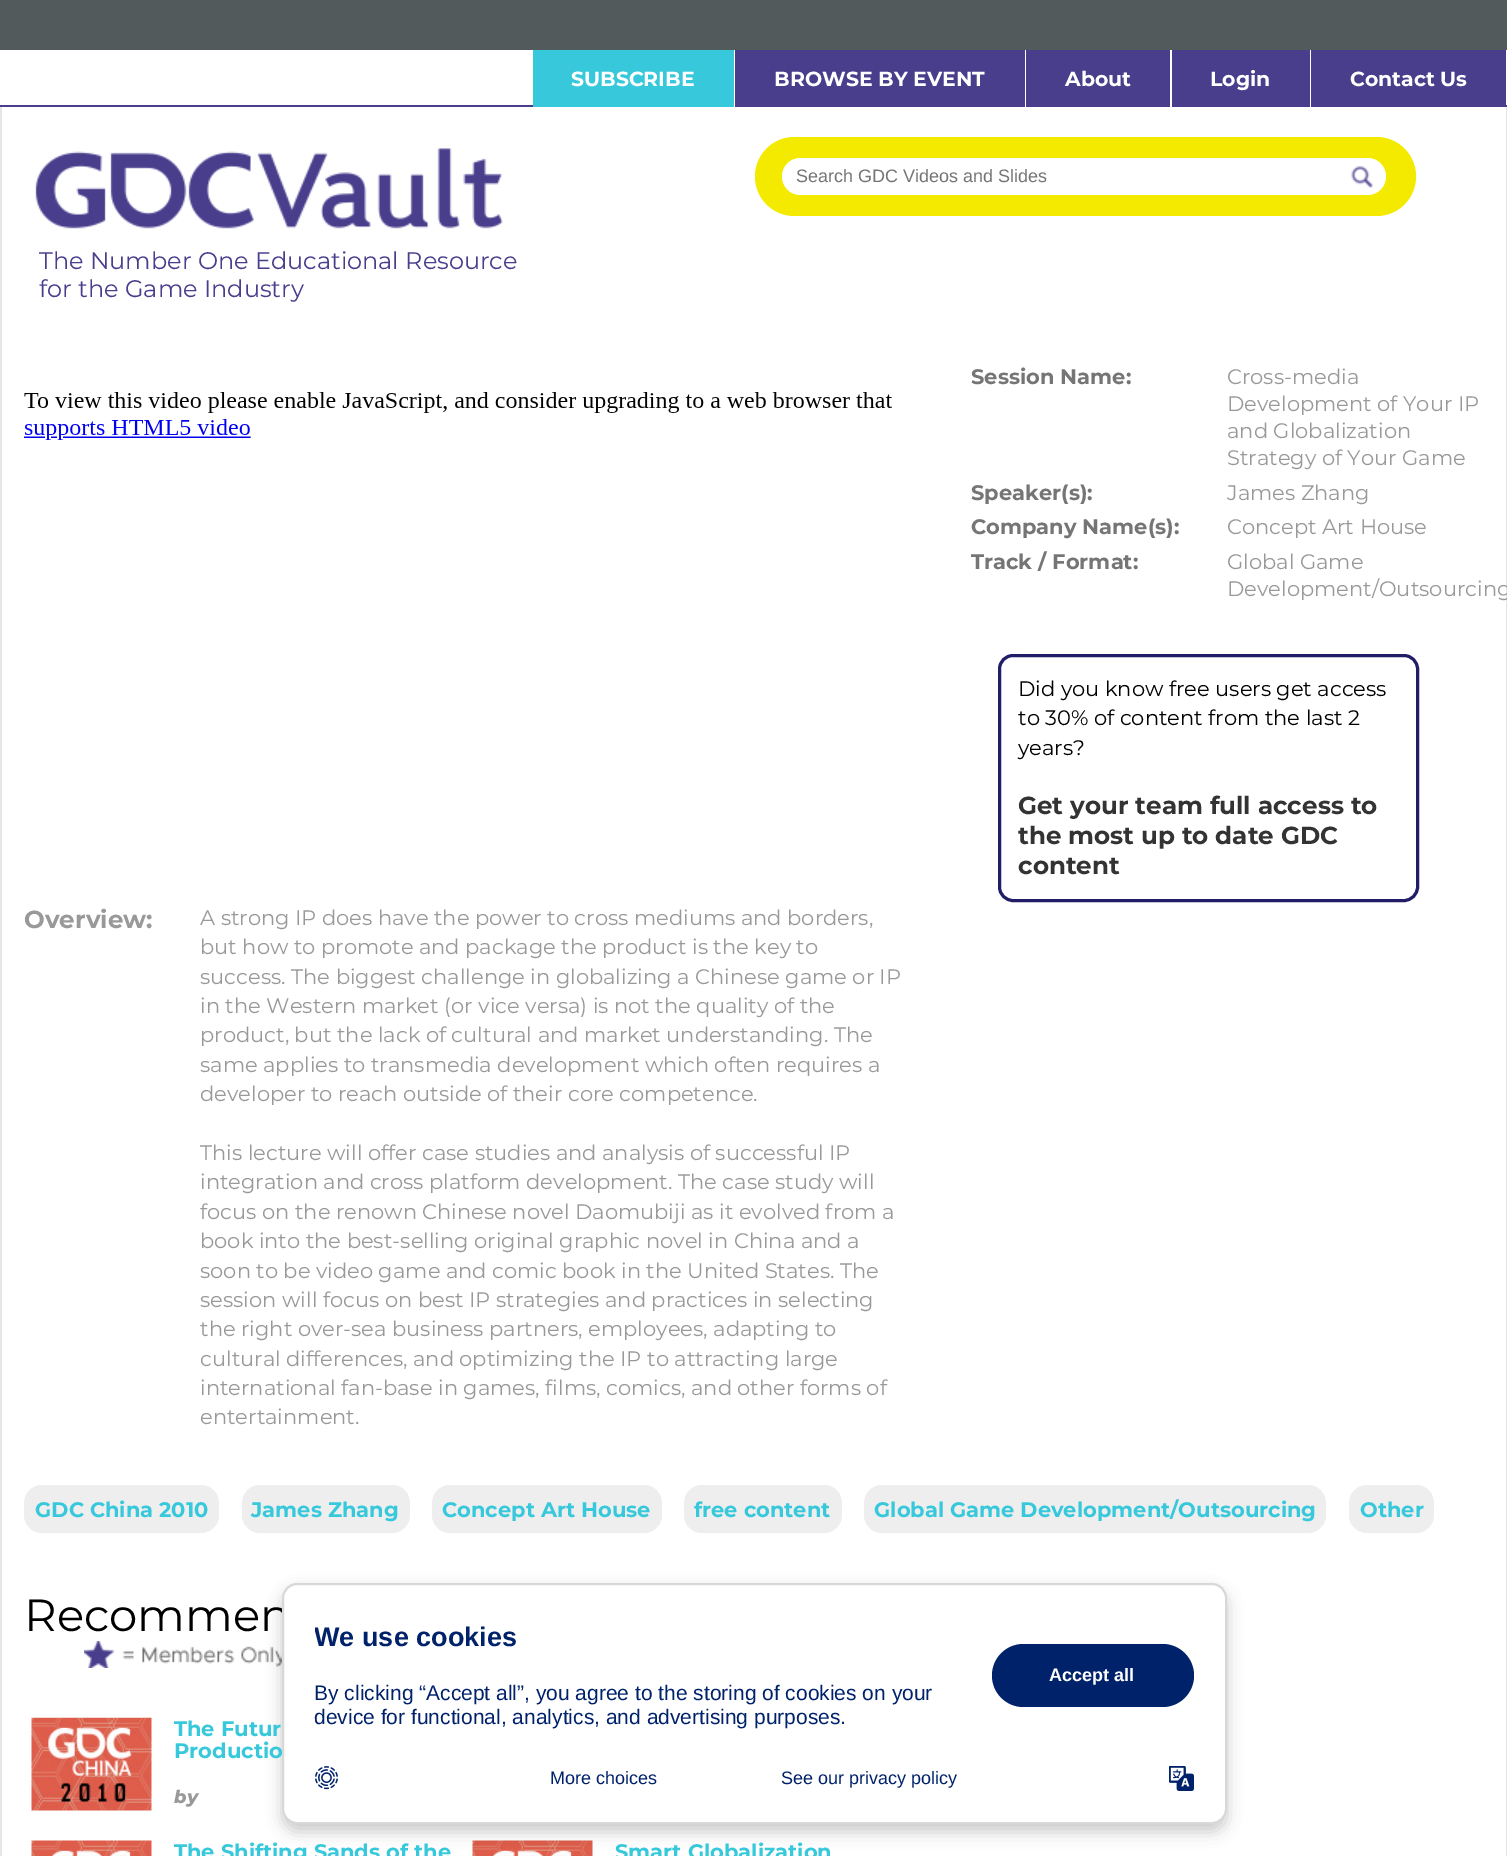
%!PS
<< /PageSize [1507 1856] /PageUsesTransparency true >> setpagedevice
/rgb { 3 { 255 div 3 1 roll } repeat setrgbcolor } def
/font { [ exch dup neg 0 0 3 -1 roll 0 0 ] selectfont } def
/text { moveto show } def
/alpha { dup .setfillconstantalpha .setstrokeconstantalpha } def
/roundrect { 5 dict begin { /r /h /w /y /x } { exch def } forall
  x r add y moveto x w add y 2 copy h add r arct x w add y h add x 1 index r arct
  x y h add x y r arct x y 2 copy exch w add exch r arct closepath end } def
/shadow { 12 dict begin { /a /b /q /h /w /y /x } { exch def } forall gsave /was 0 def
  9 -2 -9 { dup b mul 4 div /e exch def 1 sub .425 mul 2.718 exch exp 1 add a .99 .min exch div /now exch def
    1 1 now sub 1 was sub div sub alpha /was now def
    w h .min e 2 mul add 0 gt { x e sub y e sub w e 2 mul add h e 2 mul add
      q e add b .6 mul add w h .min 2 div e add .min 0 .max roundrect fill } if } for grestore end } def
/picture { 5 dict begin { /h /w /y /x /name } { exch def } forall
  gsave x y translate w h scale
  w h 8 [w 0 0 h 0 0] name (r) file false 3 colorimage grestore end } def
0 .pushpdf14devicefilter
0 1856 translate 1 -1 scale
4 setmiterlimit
255 255 255 rgb
0 0 1507 1856 rectfill
82 90 92 rgb
0 0 1507 50 rectfill
72 62 140 rgb
0 105 1507 2 rectfill
255 255 255 rgb
734 105 1 2 rectfill
55 201 219 rgb
533 50 201 57 rectfill
72 62 140 rgb
735 50 290 55 rectfill
255 255 255 rgb
1025 105 1 2 rectfill
72 62 140 rgb
1026 50 144 55 rectfill
255 255 255 rgb
1170 105 2 2 rectfill
72 62 140 rgb
1172 50 138 55 rectfill
255 255 255 rgb
1310 105 1 2 rectfill
72 62 140 rgb
1311 50 195 55 rectfill
229 229 229 rgb
1506 107 1 1749 rectfill
0 107 2 1749 rectfill
243 234 0 rgb
755 137 661 79 39.5 roundrect fill
255 255 255 rgb
782 158 604 37 18.5 roundrect fill
(img_01.rgb) 1351 166 22 22 picture
(img_02.rgb) 35 148 468 81 picture
34 29 103 rgb
3 setlinewidth
999.5 655.5 418 245 13.5 roundrect stroke
(img_03.rgb) 24 392 868 48 picture
238 238 238 rgb
24 1485 195 48 18 roundrect fill
242 1485 168 48 18 roundrect fill
432 1485 230 48 18 roundrect fill
684 1485 158 48 18 roundrect fill
864 1485 462 48 18 roundrect fill
1349 1485 85 48 18 roundrect fill
(img_04.rgb) 84 1641 198 27 picture
(img_05.rgb) 31 1717 121 94 picture
(img_06.rgb) 31 1840 121 16 picture
(img_06.rgb) 472 1840 121 16 picture
0 0 0 rgb
282 1590 945 242 15 7.5 0.2 shadow
/Montserrat-Bold 20.4 font
255 255 255 rgb
(SUBSCRIBE) 571 86 text
(BROWSE BY EVENT) 774 86 text
(About) 1065 86 text
(Login) 1210 86 text
(Contact Us) 1350 86 text
/LiberationSans-Regular 18 font
117 117 117 rgb
(Search GDC Videos and Slides) 796 182 text
/Montserrat-Regular 24 font
72 62 140 rgb
(The Number One Educational Resource) 39 269 text
(for the Game Industry) 39 297 text
/Montserrat-Bold 21 font
117 117 117 rgb
(Session Name:) 971 384 text
/Montserrat-Regular 21 font
153 153 153 rgb
(Cross-media) 1227 384 text
(Development of Your IP) 1227 411 text
(and Globalization) 1227 438 text
(Strategy of Your Game) 1227 465 text
/Montserrat-Bold 21 font
117 117 117 rgb
(Speaker\(s\):) 971 500 text
/Montserrat-Regular 21 font
153 153 153 rgb
(James Zhang) 1227 500 text
/Montserrat-Bold 21 font
117 117 117 rgb
(Company Name\(s\):) 971 534 text
/Montserrat-Regular 21 font
153 153 153 rgb
(Concept Art House) 1227 534 text
/Montserrat-Bold 21 font
117 117 117 rgb
(Track / Format:) 971 569 text
/Montserrat-Regular 21 font
153 153 153 rgb
(Global Game) 1227 569 text
(Development/Outsourcing) 1227 596 text
0 0 0 rgb
(Did you know free users get access) 1018 696 text
(to 30% of content from the last 2) 1018 725 text
(years?) 1018 755 text
/Montserrat-Bold 24.6 font
51 51 51 rgb
(Get your team full access to) 1018 814 text
(the most up to date GDC) 1018 844 text
(content) 1018 874 text
153 153 153 rgb
(Overview:) 24 928 text
/Montserrat-Regular 21 font
(A strong IP does have the power to cross mediums and borders,) 200 925 text
(but how to promote and package the product is the key to) 200 954 text
(success. The biggest challenge in globalizing a Chinese game or IP) 200 984 text
(in the Western market \(or vice versa\) is not the quality of the) 200 1013 text
(product, but the lack of cultural and market understanding. The) 200 1042 text
(same applies to transmedia development which often requires a) 200 1072 text
(developer to reach outside of their core competence.) 200 1101 text
(This lecture will offer case studies and analysis of successful IP) 200 1160 text
(integration and cross platform development. The case study will) 200 1189 text
(focus on the renown Chinese novel Daomubiji as it evolved from a) 200 1219 text
(book into the best-selling original graphic novel in China and a) 200 1248 text
(soon to be video game and comic book in the United States. The) 200 1278 text
(session will focus on best IP strategies and practices in selecting) 200 1307 text
(the right over-sea business partners, employees, adapting to) 200 1336 text
(cultural differences, and optimizing the IP to attracting large) 200 1366 text
(international fan-base in games, films, comics, and other forms of) 200 1395 text
(entertainment.) 200 1424 text
/Montserrat-Bold 21 font
55 201 219 rgb
(GDC China 2010) 35 1517 text
(James Zhang) 251 1517 text
(Concept Art House) 442 1517 text
(free content) 694 1517 text
(Global Game Development/Outsourcing) 874 1517 text
(Other) 1360 1517 text
/Montserrat-Regular 45 font
0 0 0 rgb
(Recommen) 24 1631 text
/Montserrat-Bold 21 font
55 201 219 rgb
(The Futur) 174 1736 text
(Productio) 174 1758 text
/Montserrat-ThinItalic 18 font
153 153 153 rgb
(by) 174 1803 text
/Montserrat-Bold 21 font
55 201 219 rgb
(The Shifting Sands of the) 174 1859 text
(Smart Globalization) 615 1859 text
255 255 255 rgb
283 1584 943 239 14 roundrect gsave fill grestore
216 216 216 rgb
2 setlinewidth
stroke
gsave
315 1616 879 118 rectclip
/LiberationSans-Bold 27 font
0 34 106 rgb
(We use cookies) 314 1646 text
grestore
/LiberationSans-Regular 21 font
0 34 106 rgb
(By clicking “Accept all”, you agree to the storing of cookies on your) 314 1700 text
(device for functional, analytics, and advertising purposes.) 314 1724 text
992 1644 202 63 31.5 roundrect fill
/LiberationSans-Bold 18 font
255 255 255 rgb
(Accept all) 1049 1681 text
(img_07.rgb) 315 1766 23 24 picture
/LiberationSans-Regular 18 font
0 34 106 rgb
(More choices) 550 1784 text
(See our privacy policy) 781 1784 text
(img_08.rgb) 1169 1766 25 25 picture
.poppdf14devicefilter showpage
